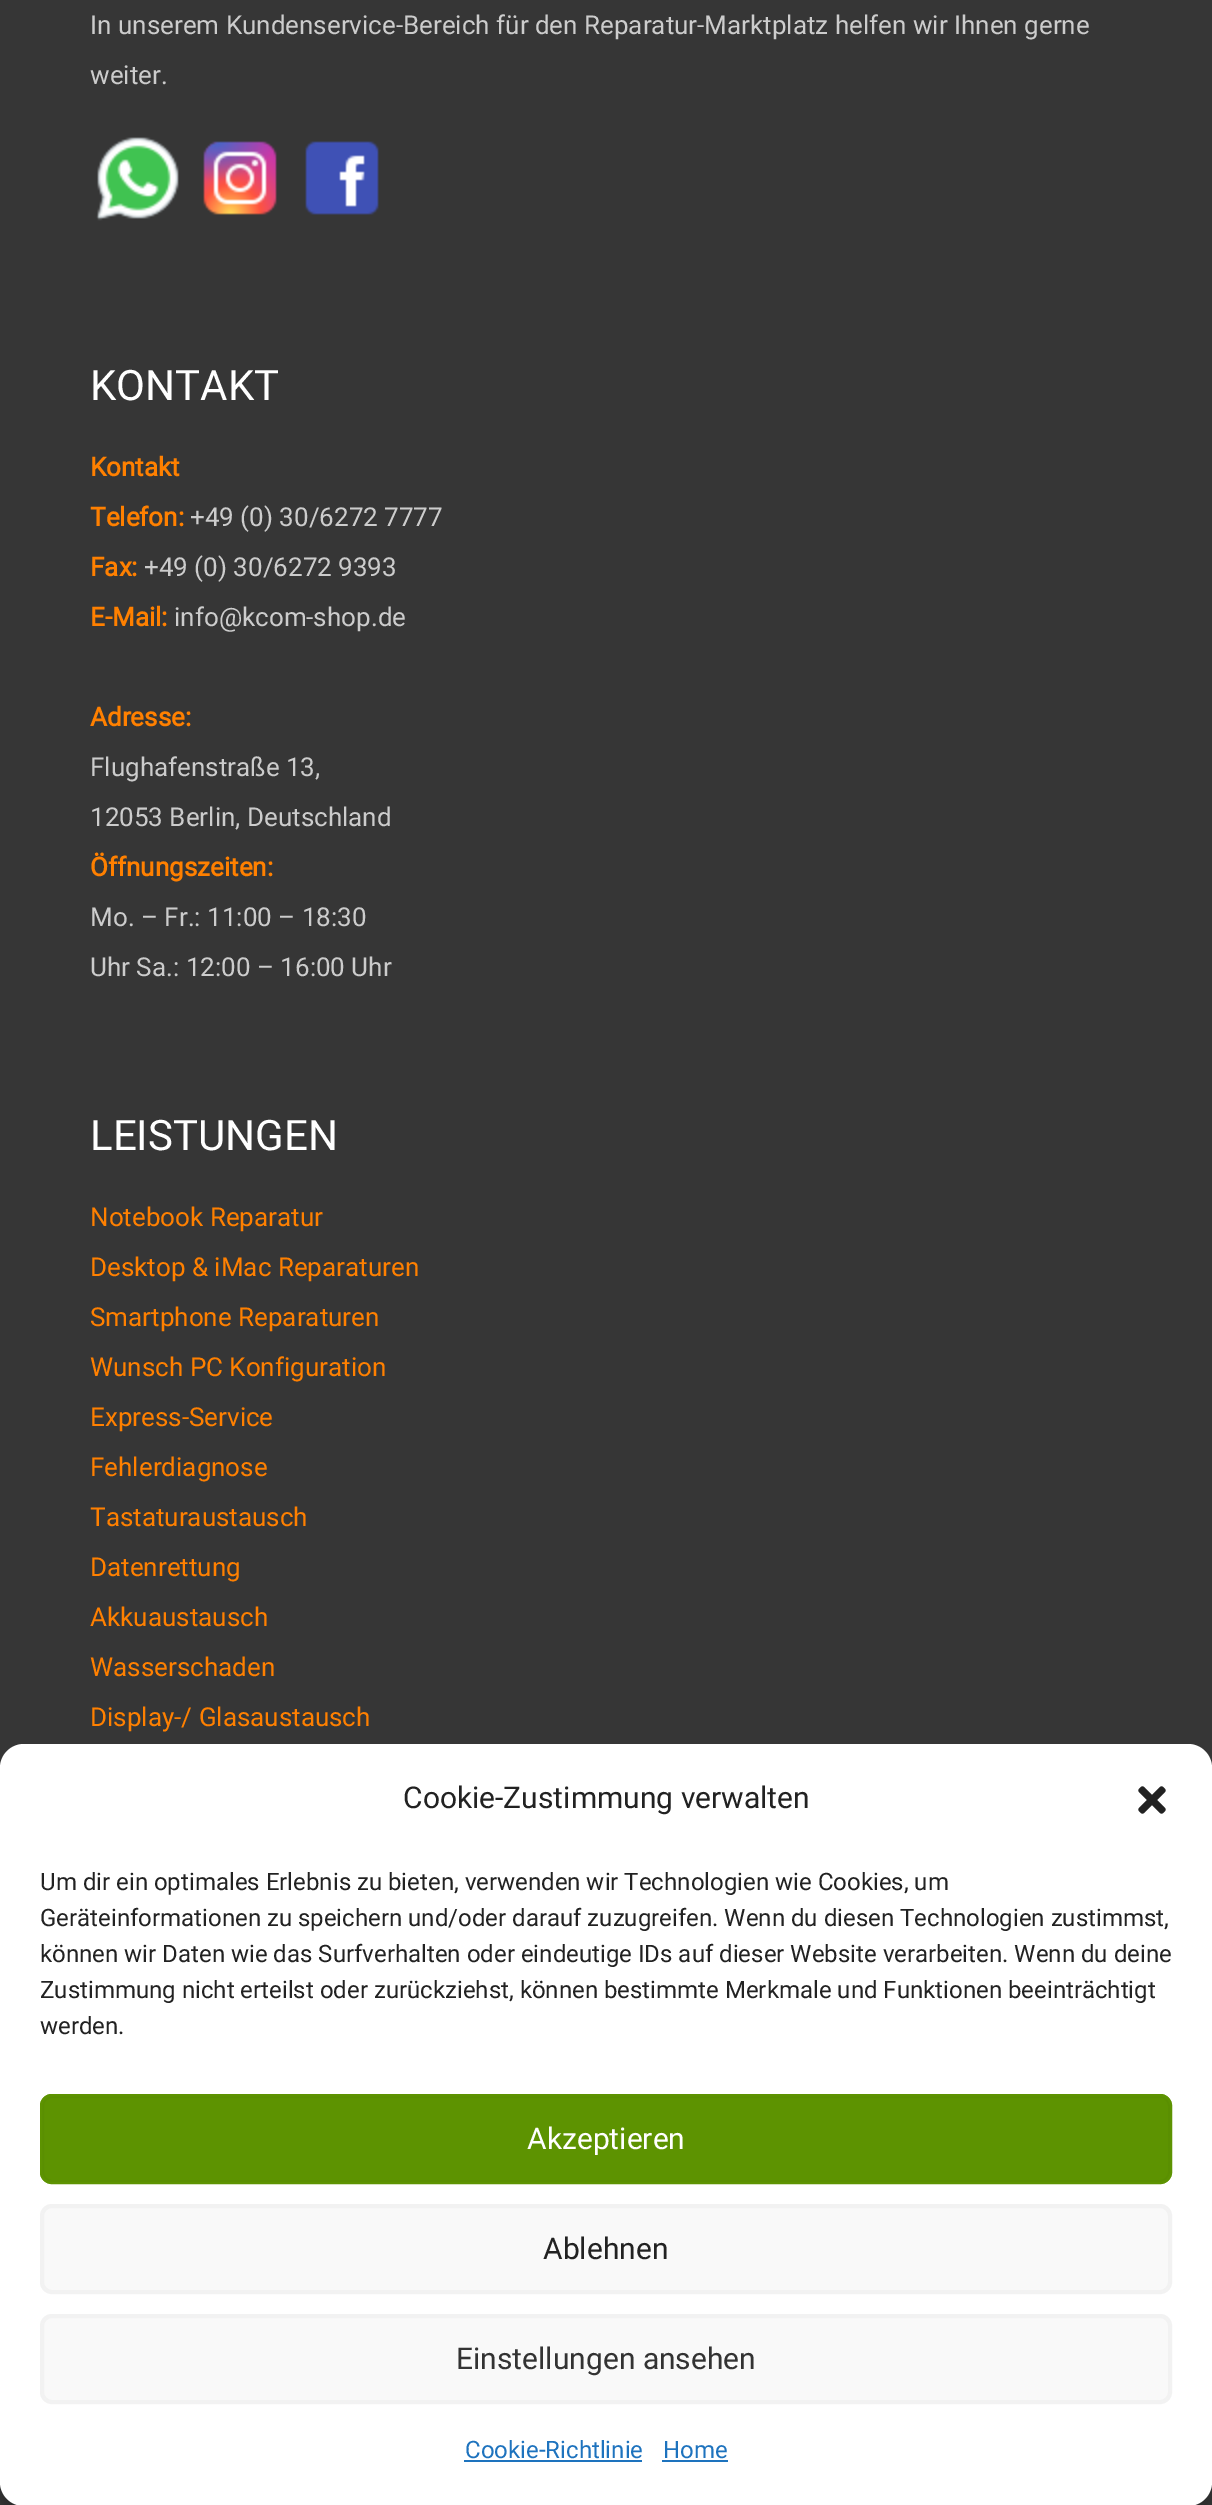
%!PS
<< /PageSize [1212 2505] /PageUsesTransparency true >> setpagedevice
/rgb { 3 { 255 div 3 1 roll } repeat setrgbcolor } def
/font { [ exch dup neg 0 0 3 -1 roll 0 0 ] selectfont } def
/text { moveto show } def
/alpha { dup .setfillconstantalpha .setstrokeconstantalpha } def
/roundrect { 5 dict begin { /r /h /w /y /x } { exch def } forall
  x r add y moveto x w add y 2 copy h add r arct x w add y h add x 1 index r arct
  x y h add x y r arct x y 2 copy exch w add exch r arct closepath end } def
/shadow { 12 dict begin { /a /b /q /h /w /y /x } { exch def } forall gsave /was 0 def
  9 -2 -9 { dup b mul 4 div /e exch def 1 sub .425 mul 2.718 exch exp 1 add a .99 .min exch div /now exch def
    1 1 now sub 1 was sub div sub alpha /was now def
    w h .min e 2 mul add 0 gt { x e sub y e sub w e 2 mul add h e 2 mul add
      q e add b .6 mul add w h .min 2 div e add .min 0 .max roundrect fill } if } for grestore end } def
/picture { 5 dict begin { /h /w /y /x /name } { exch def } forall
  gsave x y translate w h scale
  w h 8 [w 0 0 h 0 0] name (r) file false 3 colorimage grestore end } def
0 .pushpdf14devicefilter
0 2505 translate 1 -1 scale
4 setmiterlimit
54 54 54 rgb
0 0 1212 2505 rectfill
(img_01.rgb) 96 137 83 84 picture
(img_02.rgb) 203 141 74 74 picture
(img_03.rgb) 305 141 74 74 picture
0 0 0 rgb
0 1756 1212 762 24 6 0.23 shadow
255 255 255 rgb
0 1744 1212 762 24 roundrect fill
(img_04.rgb) 1138 1786 28 28 picture
93 147 1 rgb
40 2094 1132 90 12 roundrect fill
90 143 1 rgb
2 setlinewidth
43 2097 1126 84 9 roundrect stroke
93 147 1 rgb
41 2095 1130 88 11 roundrect stroke
249 249 249 rgb
40 2204 1132 90 12 roundrect fill
242 242 242 rgb
43 2207 1126 84 9 roundrect stroke
41 2205 1130 88 11 roundrect stroke
249 249 249 rgb
40 2314 1132 90 12 roundrect fill
242 242 242 rgb
43 2317 1126 84 9 roundrect stroke
41 2315 1130 88 11 roundrect stroke
30 115 190 rgb
464 2460 178 2 rectfill
662 2460 66 2 rectfill
/Roboto-Regular 26 font
204 204 204 rgb
(In unserem Kundenservice-Bereich für den Reparatur-Marktplatz helfen wir Ihnen gerne) 90 34 text
(weiter.) 90 84 text
/Roboto-Regular 42 font
255 255 255 rgb
(KONTAKT) 90 400 text
/Roboto-Bold 26 font
255 128 0 rgb
(Kontakt) 90 476 text
(Telefon:) 90 526 text
/Roboto-Regular 26 font
204 204 204 rgb
(+49 \(0\) 30/6272 7777) 190 526 text
/Roboto-Bold 26 font
255 128 0 rgb
(Fax:) 90 576 text
/Roboto-Regular 26 font
204 204 204 rgb
(+49 \(0\) 30/6272 9393) 144 576 text
/Roboto-Bold 26 font
255 128 0 rgb
(E-Mail:) 90 626 text
/Roboto-Regular 26 font
204 204 204 rgb
(info@kcom-shop.de) 174 626 text
/Roboto-Bold 26 font
255 128 0 rgb
(Adresse:) 90 726 text
/Roboto-Regular 26 font
204 204 204 rgb
(Flughafenstraße 13,) 90 776 text
(12053 Berlin, Deutschland) 90 826 text
/Roboto-Bold 26 font
255 128 0 rgb
(Öffnungszeiten:) 90 876 text
/Roboto-Regular 26 font
204 204 204 rgb
(Mo. – Fr.: 11:00 – 18:30) 90 926 text
(Uhr Sa.: 12:00 – 16:00 Uhr) 90 976 text
/Roboto-Regular 42 font
255 255 255 rgb
(LEISTUNGEN) 90 1150 text
/Roboto-Regular 26 font
255 128 0 rgb
(Notebook Reparatur) 90 1226 text
(Desktop & iMac Reparaturen) 90 1276 text
(Smartphone Reparaturen) 90 1326 text
(Wunsch PC Konfiguration) 90 1376 text
(Express-Service) 90 1426 text
(Fehlerdiagnose) 90 1476 text
(Tastaturaustausch) 90 1526 text
(Datenrettung) 90 1576 text
(Akkuaustausch) 90 1626 text
(Wasserschaden) 90 1676 text
(Display-/ Glasaustausch) 90 1726 text
/Roboto-Regular 30 font
34 34 34 rgb
(Cookie-Zustimmung verwalten) 403 1808 text
/Roboto-Regular 24 font
(Um dir ein optimales Erlebnis zu bieten, verwenden wir Technologien wie Cookies, um) 40 1890 text
(Geräteinformationen zu speichern und/oder darauf zuzugreifen. Wenn du diesen Technologien zustimmst,) 40 1926 text
(können wir Daten wie das Surfverhalten oder eindeutige IDs auf dieser Website verarbeiten. Wenn du deine) 40 1962 text
(Zustimmung nicht erteilst oder zurückziehst, können bestimmte Merkmale und Funktionen beeinträchtigt) 40 1998 text
(werden.) 40 2034 text
/Roboto-Regular 30 font
255 255 255 rgb
(Akzeptieren) 527 2149 text
34 34 34 rgb
(Ablehnen) 543 2259 text
51 51 51 rgb
(Einstellungen ansehen) 456 2369 text
/Roboto-Regular 24 font
30 115 190 rgb
(Cookie-Richtlinie) 465 2458 text
(Home) 663 2458 text
.poppdf14devicefilter showpage
